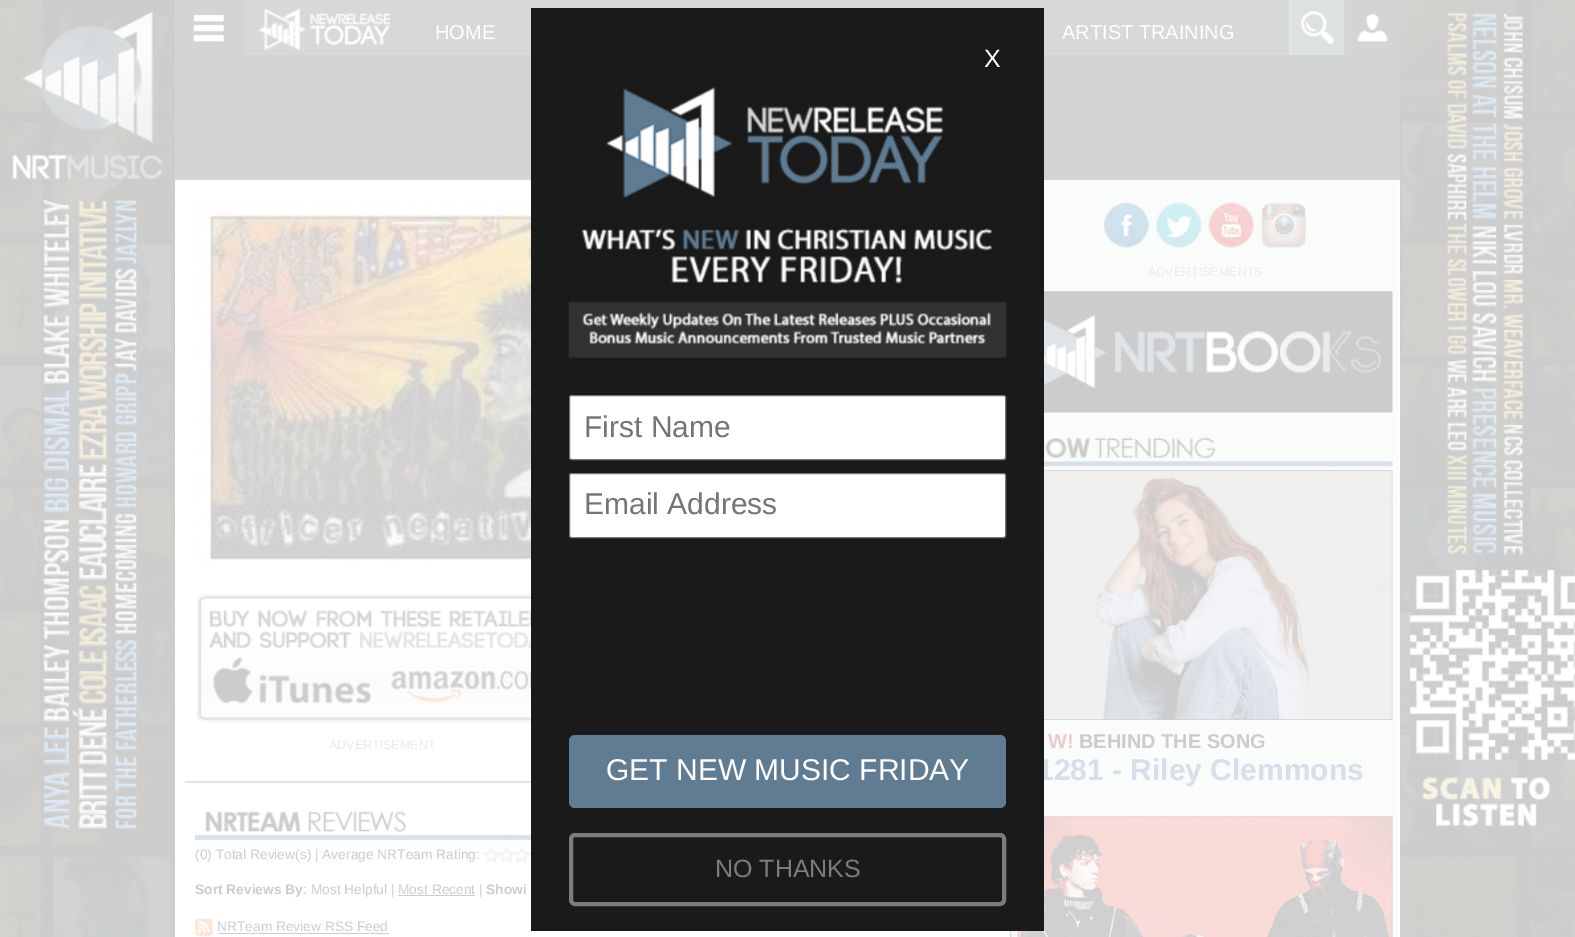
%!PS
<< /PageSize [1575 937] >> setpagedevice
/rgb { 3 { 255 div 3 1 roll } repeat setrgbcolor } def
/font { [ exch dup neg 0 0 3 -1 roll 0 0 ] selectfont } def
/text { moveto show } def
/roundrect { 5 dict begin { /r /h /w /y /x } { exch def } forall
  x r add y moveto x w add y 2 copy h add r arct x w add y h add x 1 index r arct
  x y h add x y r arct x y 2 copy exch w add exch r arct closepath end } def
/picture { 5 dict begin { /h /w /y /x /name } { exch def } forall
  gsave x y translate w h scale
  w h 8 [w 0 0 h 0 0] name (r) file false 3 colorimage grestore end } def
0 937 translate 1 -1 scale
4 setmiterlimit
255 255 255 rgb
0 0 1575 937 rectfill
(img_01.rgb) 0 0 1575 937 picture
215 217 217 rgb
243 0 1102 55 rectfill
211 212 212 rgb
175 0 68 55 rectfill
(img_02.rgb) 193 14 31 28 picture
(img_03.rgb) 258 8 133 43 picture
222 225 225 rgb
1290 0 54 55 rectfill
(img_04.rgb) 1301 11 33 33 picture
226 230 229 rgb
1289 0 1 55 rectfill
211 212 212 rgb
1345 0 55 55 rectfill
(img_05.rgb) 1357 13 31 29 picture
(img_07.rgb) 1010 180 390 757 picture
(img_08.rgb) 1103 202 46 46 picture
(img_09.rgb) 1156 202 46 46 picture
(img_10.rgb) 1208 202 46 46 picture
(img_11.rgb) 1261 202 46 46 picture
(img_12.rgb) 1044 291 349 122 picture
(img_13.rgb) 1044 437 349 30 picture
(img_14.rgb) 1044 470 349 250 picture
(img_15.rgb) 1017 816 376 121 picture
255 255 255 rgb
175 180 835 757 rectfill
(img_16.rgb) 195 200 336 368 picture
(img_17.rgb) 196 593 335 130 picture
230 230 230 rgb
185 782 346 1 rectfill
252 252 252 rgb
185 780 346 1 rectfill
224 224 224 rgb
185 781 346 1 rectfill
(img_18.rgb) 195 811 336 30 picture
(img_19.rgb) 483 847 48 16 picture
204 204 214 rgb
398 895 77 1 rectfill
(img_20.rgb) 195 918 18 19 picture
218 933 171 1 rectfill
211 212 212 rgb
175 55 1225 125 rectfill
/LiberationSans-Regular 20 font
255 255 255 rgb
(HOME) 435 39 text
(ARTIST TRAINING) 1062 39 text
/LiberationSans-Regular 12.5 font
235 235 235 rgb
(ADVERTISEMENTS) 1148 276 text
/LiberationSans-Bold 20 font
235 204 204 rgb
(W!) 1048 748 text
204 204 204 rgb
(BEHIND THE SONG) 1079 748 text
/LiberationSans-Bold 30 font
214 224 235 rgb
(1281 - Riley Clemmons) 1037 780 text
26 26 26 rgb
531 8 513 923 rectfill
/LiberationSans-Regular 25 font
255 255 255 rgb
(X) 984 67 text
124 124 124 rgb
4 setlinewidth
571 835 433 69 4 roundrect stroke
(NO THANKS) 715 877 text
96 124 146 rgb
569 735 437 73 6 roundrect fill
/LiberationSans-Regular 30 font
255 255 255 rgb
(GET NEW MUSIC FRIDAY) 606 780 text
569.5 473.5 436 64 2 roundrect gsave fill grestore
118 118 118 rgb
1 setlinewidth
stroke
117 117 117 rgb
(Email Address) 584 514 text
255 255 255 rgb
569.5 395.5 436 64 2 roundrect gsave fill grestore
118 118 118 rgb
stroke
117 117 117 rgb
(First Name) 584 437 text
(img_06.rgb) 568 87 439 271 picture
/LiberationSans-Regular 12.5 font
235 235 235 rgb
(ADVERTISEMENT) 329 749 text
/LiberationSans-Regular 13.75 font
204 204 204 rgb
(\(0\) Total Review\(s\) | Average NRTeam Rating:) 195 859 text
/LiberationSans-Bold 13.75 font
(Sort Reviews By) 195 894 text
/LiberationSans-Regular 13.75 font
(: Most Helpful |) 303 894 text
204 204 214 rgb
(Most Recent) 398 894 text
204 204 204 rgb
(|) 479 894 text
/LiberationSans-Bold 13.75 font
(Showi) 486 894 text
/LiberationSans-Regular 13.75 font
204 204 214 rgb
(NRTeam Review RSS Feed) 217 931 text
showpage
